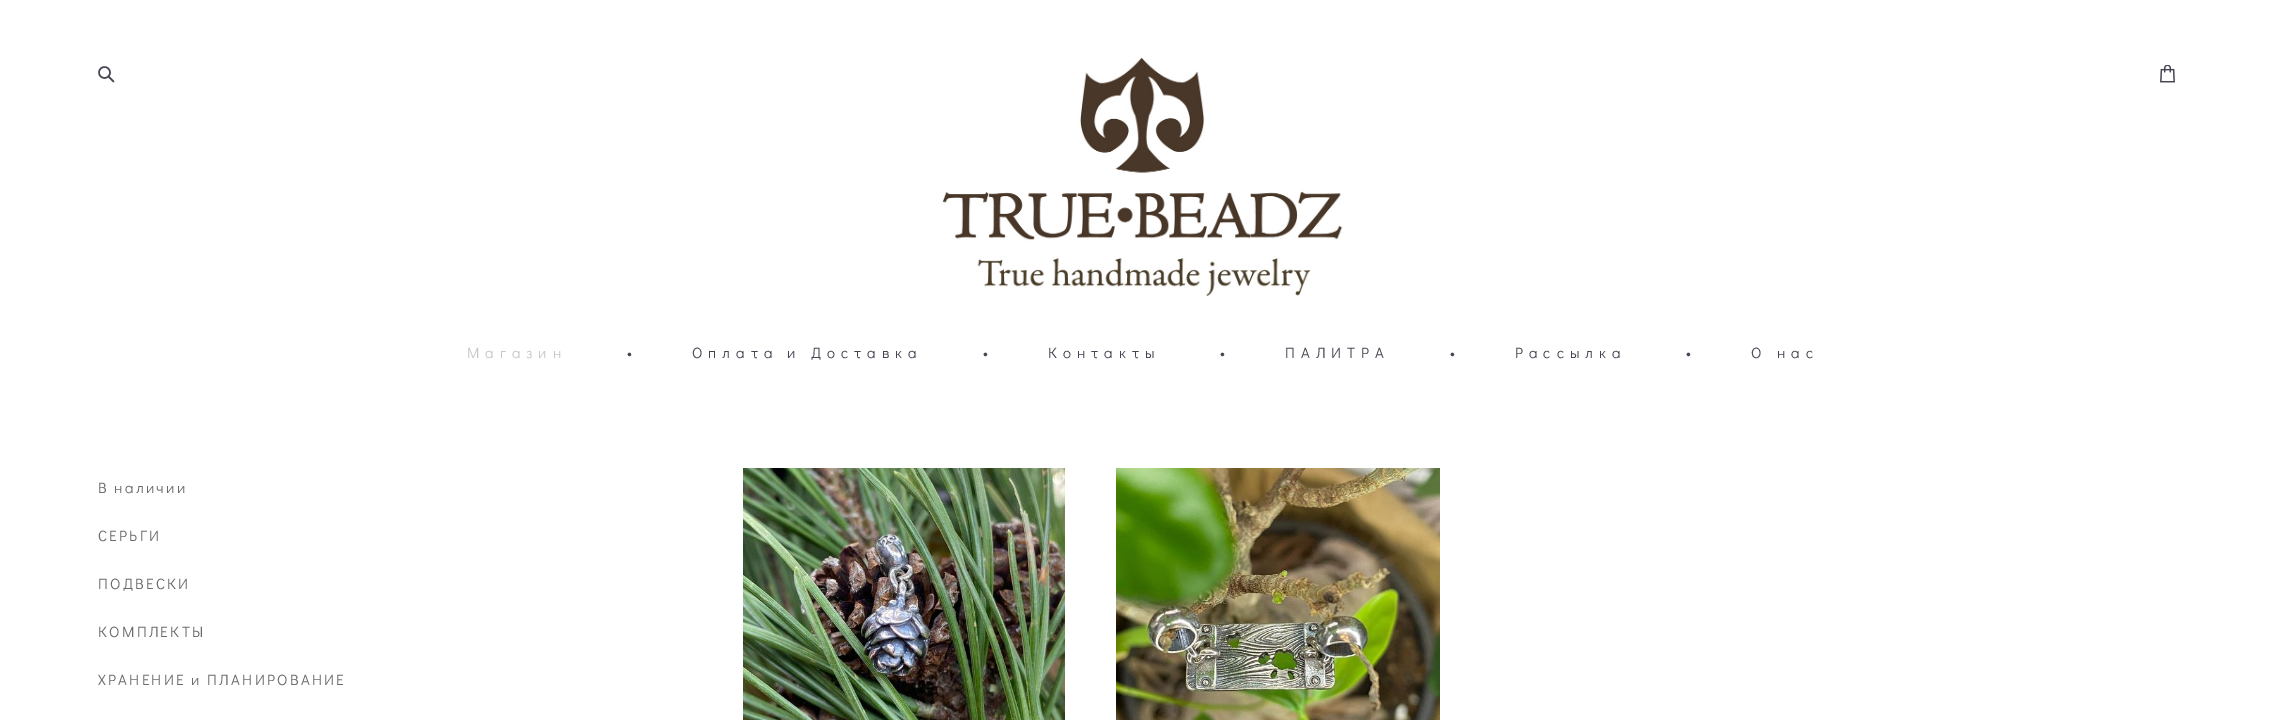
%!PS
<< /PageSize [2286 720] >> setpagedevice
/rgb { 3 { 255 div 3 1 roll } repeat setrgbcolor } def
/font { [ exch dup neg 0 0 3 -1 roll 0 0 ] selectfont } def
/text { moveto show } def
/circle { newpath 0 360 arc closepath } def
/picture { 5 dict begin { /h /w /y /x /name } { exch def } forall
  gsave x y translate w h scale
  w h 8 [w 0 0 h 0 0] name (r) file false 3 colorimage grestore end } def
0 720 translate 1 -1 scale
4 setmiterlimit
255 255 255 rgb
0 0 2286 720 rectfill
70 69 83 rgb
1.5 setlinewidth
104.5 72.5 5.5 circle stroke
1 setlinecap
1 setlinejoin
108.5 76.5 moveto 5 5 rlineto stroke
(img_01.rgb) 942 57 401 239 picture
(img_02.rgb) 2160 65 15 18 picture
(img_03.rgb) 743 468 322 252 picture
(img_04.rgb) 1116 468 324 252 picture
/DidactGothic-Regular 15 font
199 199 199 rgb
467 358 moveto 6 0 (Магазин) ashow
70 69 83 rgb
(•) 627 358 text
692 358 moveto 6 0 (Оплата и Доставка) ashow
(•) 983 358 text
1048 358 moveto 6 0 (Контакты) ashow
(•) 1220 358 text
1285 358 moveto 6 0 (ПАЛИТРА) ashow
(•) 1450 358 text
1515 358 moveto 6 0 (Рассылка) ashow
(•) 1686 358 text
1751 358 moveto 6 0 (О нас) ashow
105 107 107 rgb
98 493 moveto 2.25 0 (В наличии) ashow
98 541 moveto 2.25 0 (СЕРЬГИ) ashow
98 589 moveto 2.25 0 (ПОДВЕСКИ) ashow
98 637 moveto 2.25 0 (КОМПЛЕКТЫ) ashow
98 685 moveto 2.25 0 (ХРАНЕНИЕ и ПЛАНИРОВАНИЕ) ashow
showpage
